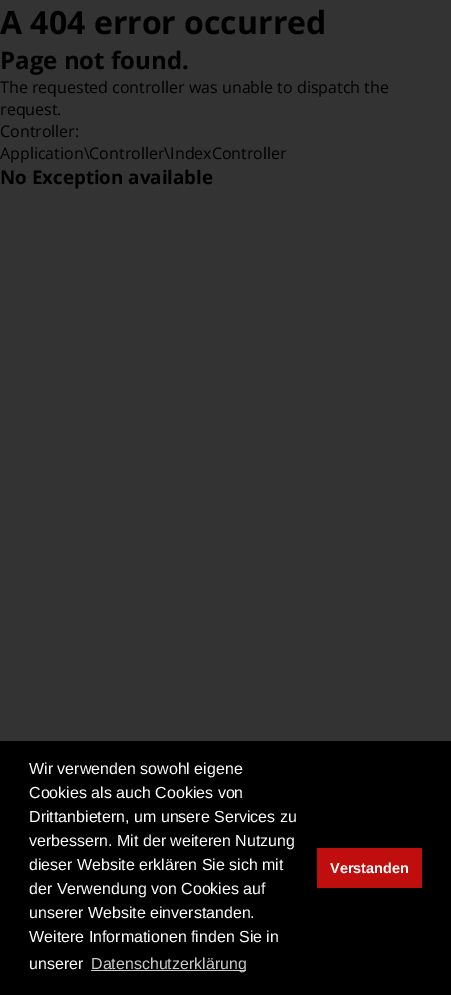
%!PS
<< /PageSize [451 995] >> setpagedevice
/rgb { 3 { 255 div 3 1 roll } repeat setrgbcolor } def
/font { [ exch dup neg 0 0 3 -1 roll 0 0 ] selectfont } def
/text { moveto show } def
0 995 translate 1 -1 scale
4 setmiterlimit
51 51 51 rgb
0 0 451 995 rectfill
0 0 0 rgb
0 741 451 254 rectfill
204 204 204 rgb
91 970 155 1 rectfill
192 13 13 rgb
317 848 105 40 rectfill
/OpenSans-Bold 32 font
0 0 0 rgb
(A 404 error occurred) 0 34 text
/OpenSans-Bold 24 font
(Page not found.) 0 69 text
/OpenSans-Regular 16 font
(The requested controller was unable to dispatch the) 0 93 text
(request.) 0 115 text
(Controller:) 0 137 text
(Application\\Controller\\IndexController) 0 159 text
/OpenSans-Bold 18.75 font
(No Exception available) 0 184 text
/LiberationSans-Regular 16 font
255 255 255 rgb
(Wir verwenden sowohl eigene) 29 774 text
(Cookies als auch Cookies von) 29 798 text
(Drittanbietern, um unsere Services zu) 29 822 text
(verbessern. Mit der weiteren Nutzung) 29 846 text
(dieser Website erklären Sie sich mit) 29 870 text
(der Verwendung von Cookies auf) 29 894 text
(unserer Website einverstanden.) 29 918 text
(Weitere Informationen finden Sie in) 29 942 text
(unserer) 29 969 text
204 204 204 rgb
(Datenschutzerklärung) 91 969 text
/LiberationSans-Bold 14.5 font
255 255 255 rgb
(Verstanden) 330 873 text
showpage
